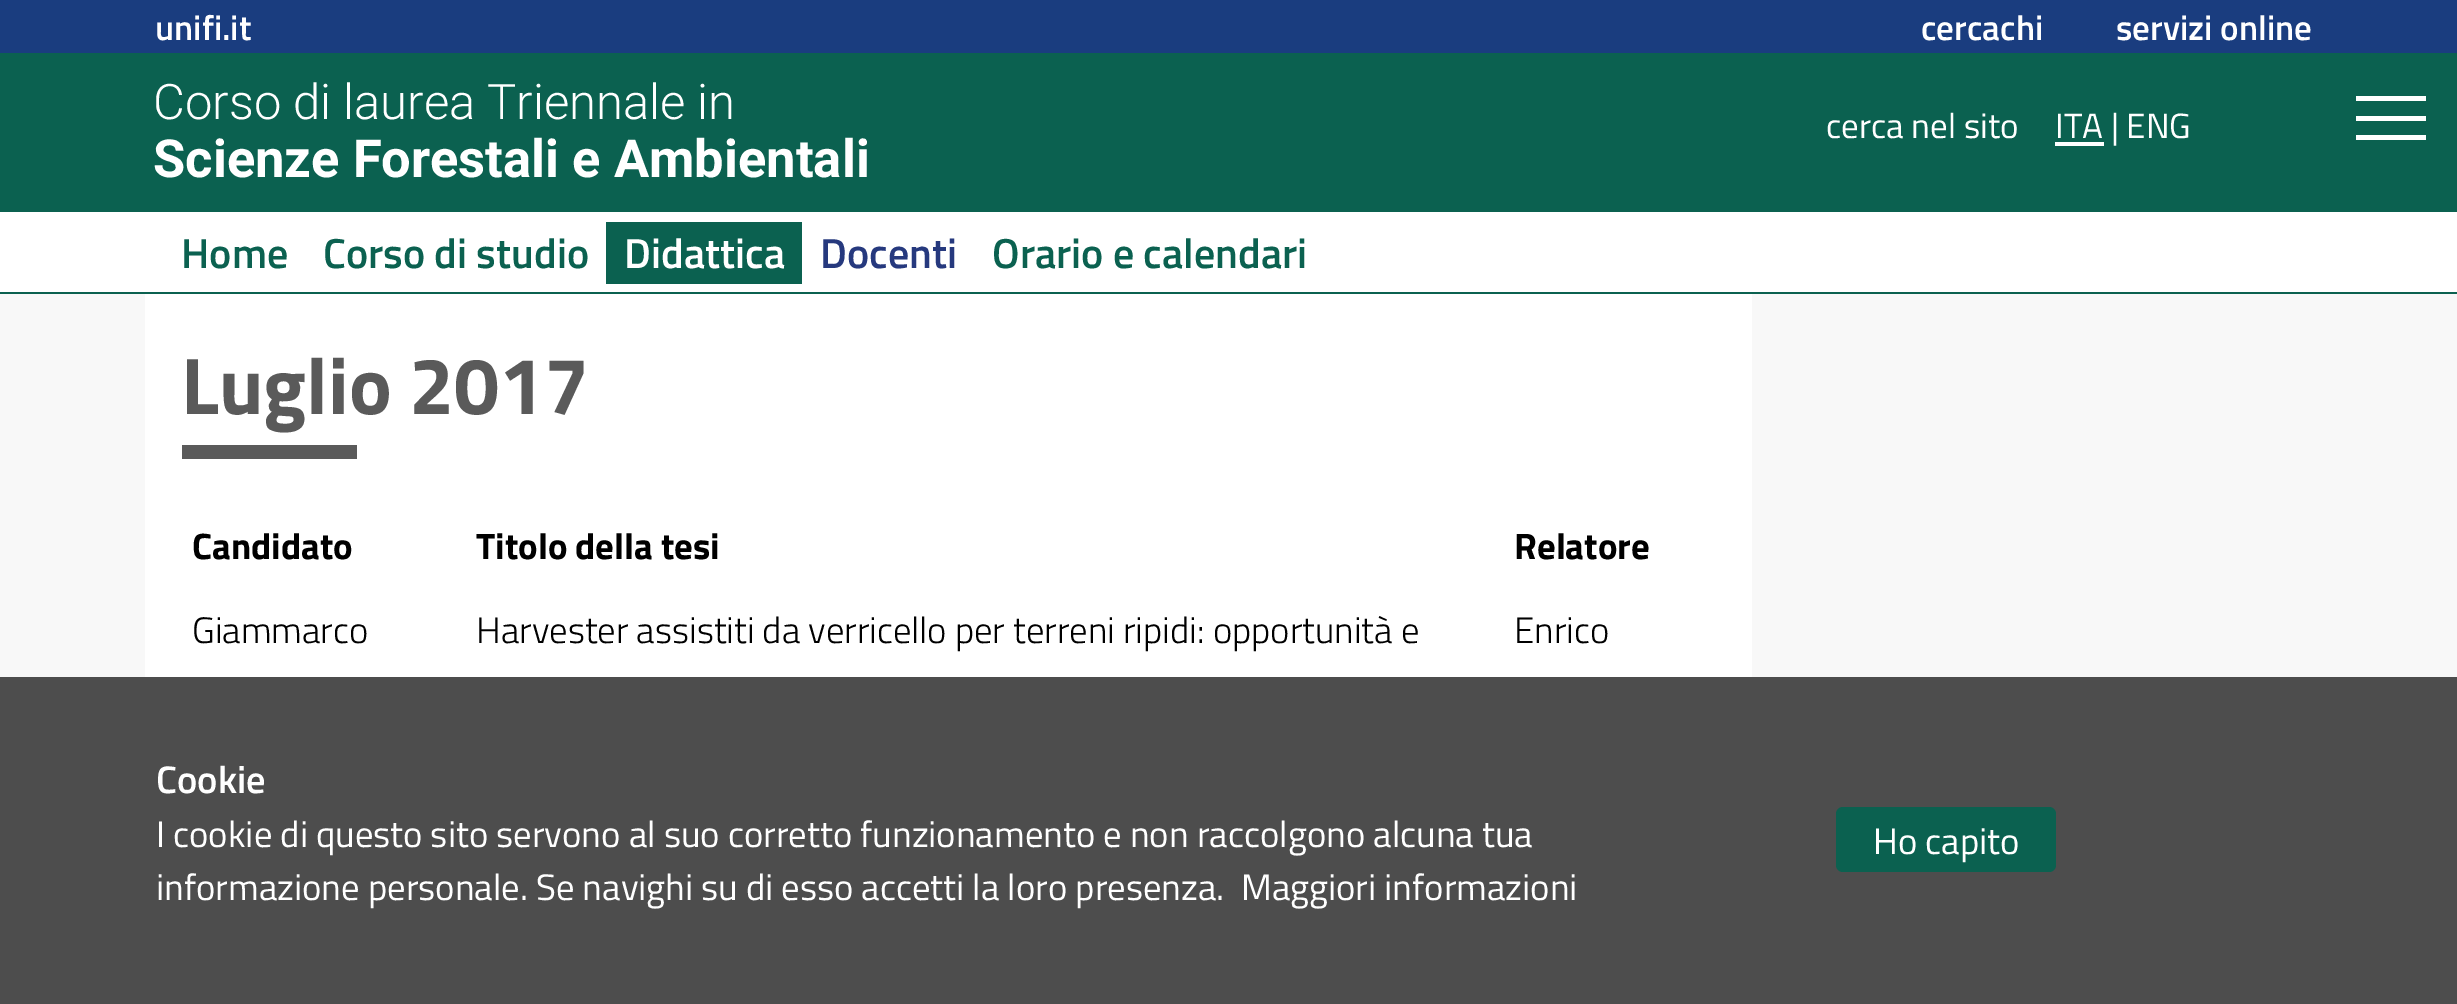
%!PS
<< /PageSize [2457 1004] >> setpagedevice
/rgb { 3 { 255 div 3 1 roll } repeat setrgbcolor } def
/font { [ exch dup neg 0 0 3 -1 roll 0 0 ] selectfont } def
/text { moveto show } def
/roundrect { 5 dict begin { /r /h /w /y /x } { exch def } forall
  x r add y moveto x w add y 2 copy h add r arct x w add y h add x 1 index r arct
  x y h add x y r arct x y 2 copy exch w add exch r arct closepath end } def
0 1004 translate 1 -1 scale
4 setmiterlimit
248 248 248 rgb
0 0 2457 1004 rectfill
26 61 127 rgb
0 0 2457 53 rectfill
11 97 80 rgb
0 53 2457 159 rectfill
255 255 255 rgb
2055 142 49 4 rectfill
0 212 2457 80 rectfill
11 97 80 rgb
0 292 2457 2 rectfill
606 222 196 62 rectfill
255 255 255 rgb
145 294 1607 383 rectfill
90 90 90 rgb
182 445 175 14 rectfill
77 77 77 rgb
0 677 2457 327 rectfill
11 97 80 rgb
1836 807 220 65 7 roundrect fill
255 255 255 rgb
2356 96 70 5 rectfill
2356 116 70 5 rectfill
2356 135 70 5 rectfill
/TitilliumWeb-SemiBold 35 font
(unifi.it) 155 40 text
(cercachi) 1921 40 text
(servizi online) 2116 40 text
/Roboto-Light 49 font
(Corso di laurea Triennale in) 153 119 text
/Roboto-Bold 52.5 font
(Scienze Forestali e Ambientali) 153 177 text
/TitilliumWeb-Regular 35 font
(cerca nel sito) 1826 138 text
(ITA | ENG) 2055 138 text
/TitilliumWeb-SemiBold 42 font
11 97 80 rgb
(Home) 181 268 text
(Corso di studio) 323 268 text
255 255 255 rgb
(Didattica) 624 268 text
38 57 126 rgb
(Docenti) 820 268 text
11 97 80 rgb
(Orario e calendari) 992 268 text
/TitilliumWeb-Bold 80.5 font
90 90 90 rgb
(Luglio 2017) 181 414 text
/TitilliumWeb-Bold 36.75 font
0 0 0 rgb
(Candidato) 192 559 text
(Titolo della tesi) 476 559 text
(Relatore) 1514 559 text
/TitilliumWeb-Light 36.75 font
(Giammarco) 192 643 text
(Harvester assistiti da verricello per terreni ripidi: opportunità e) 476 643 text
(Enrico) 1514 643 text
/TitilliumWeb-SemiBold 38.5 font
255 255 255 rgb
(Cookie) 156 793 text
/TitilliumWeb-Regular 36.75 font
(I cookie di questo sito servono al suo corretto funzionamento e non raccolgono alcuna tua) 156 847 text
(informazione personale. Se navighi su di esso accetti la loro presenza.) 156 900 text
(Maggiori informazioni) 1241 900 text
(Ho capito) 1873 854 text
showpage
